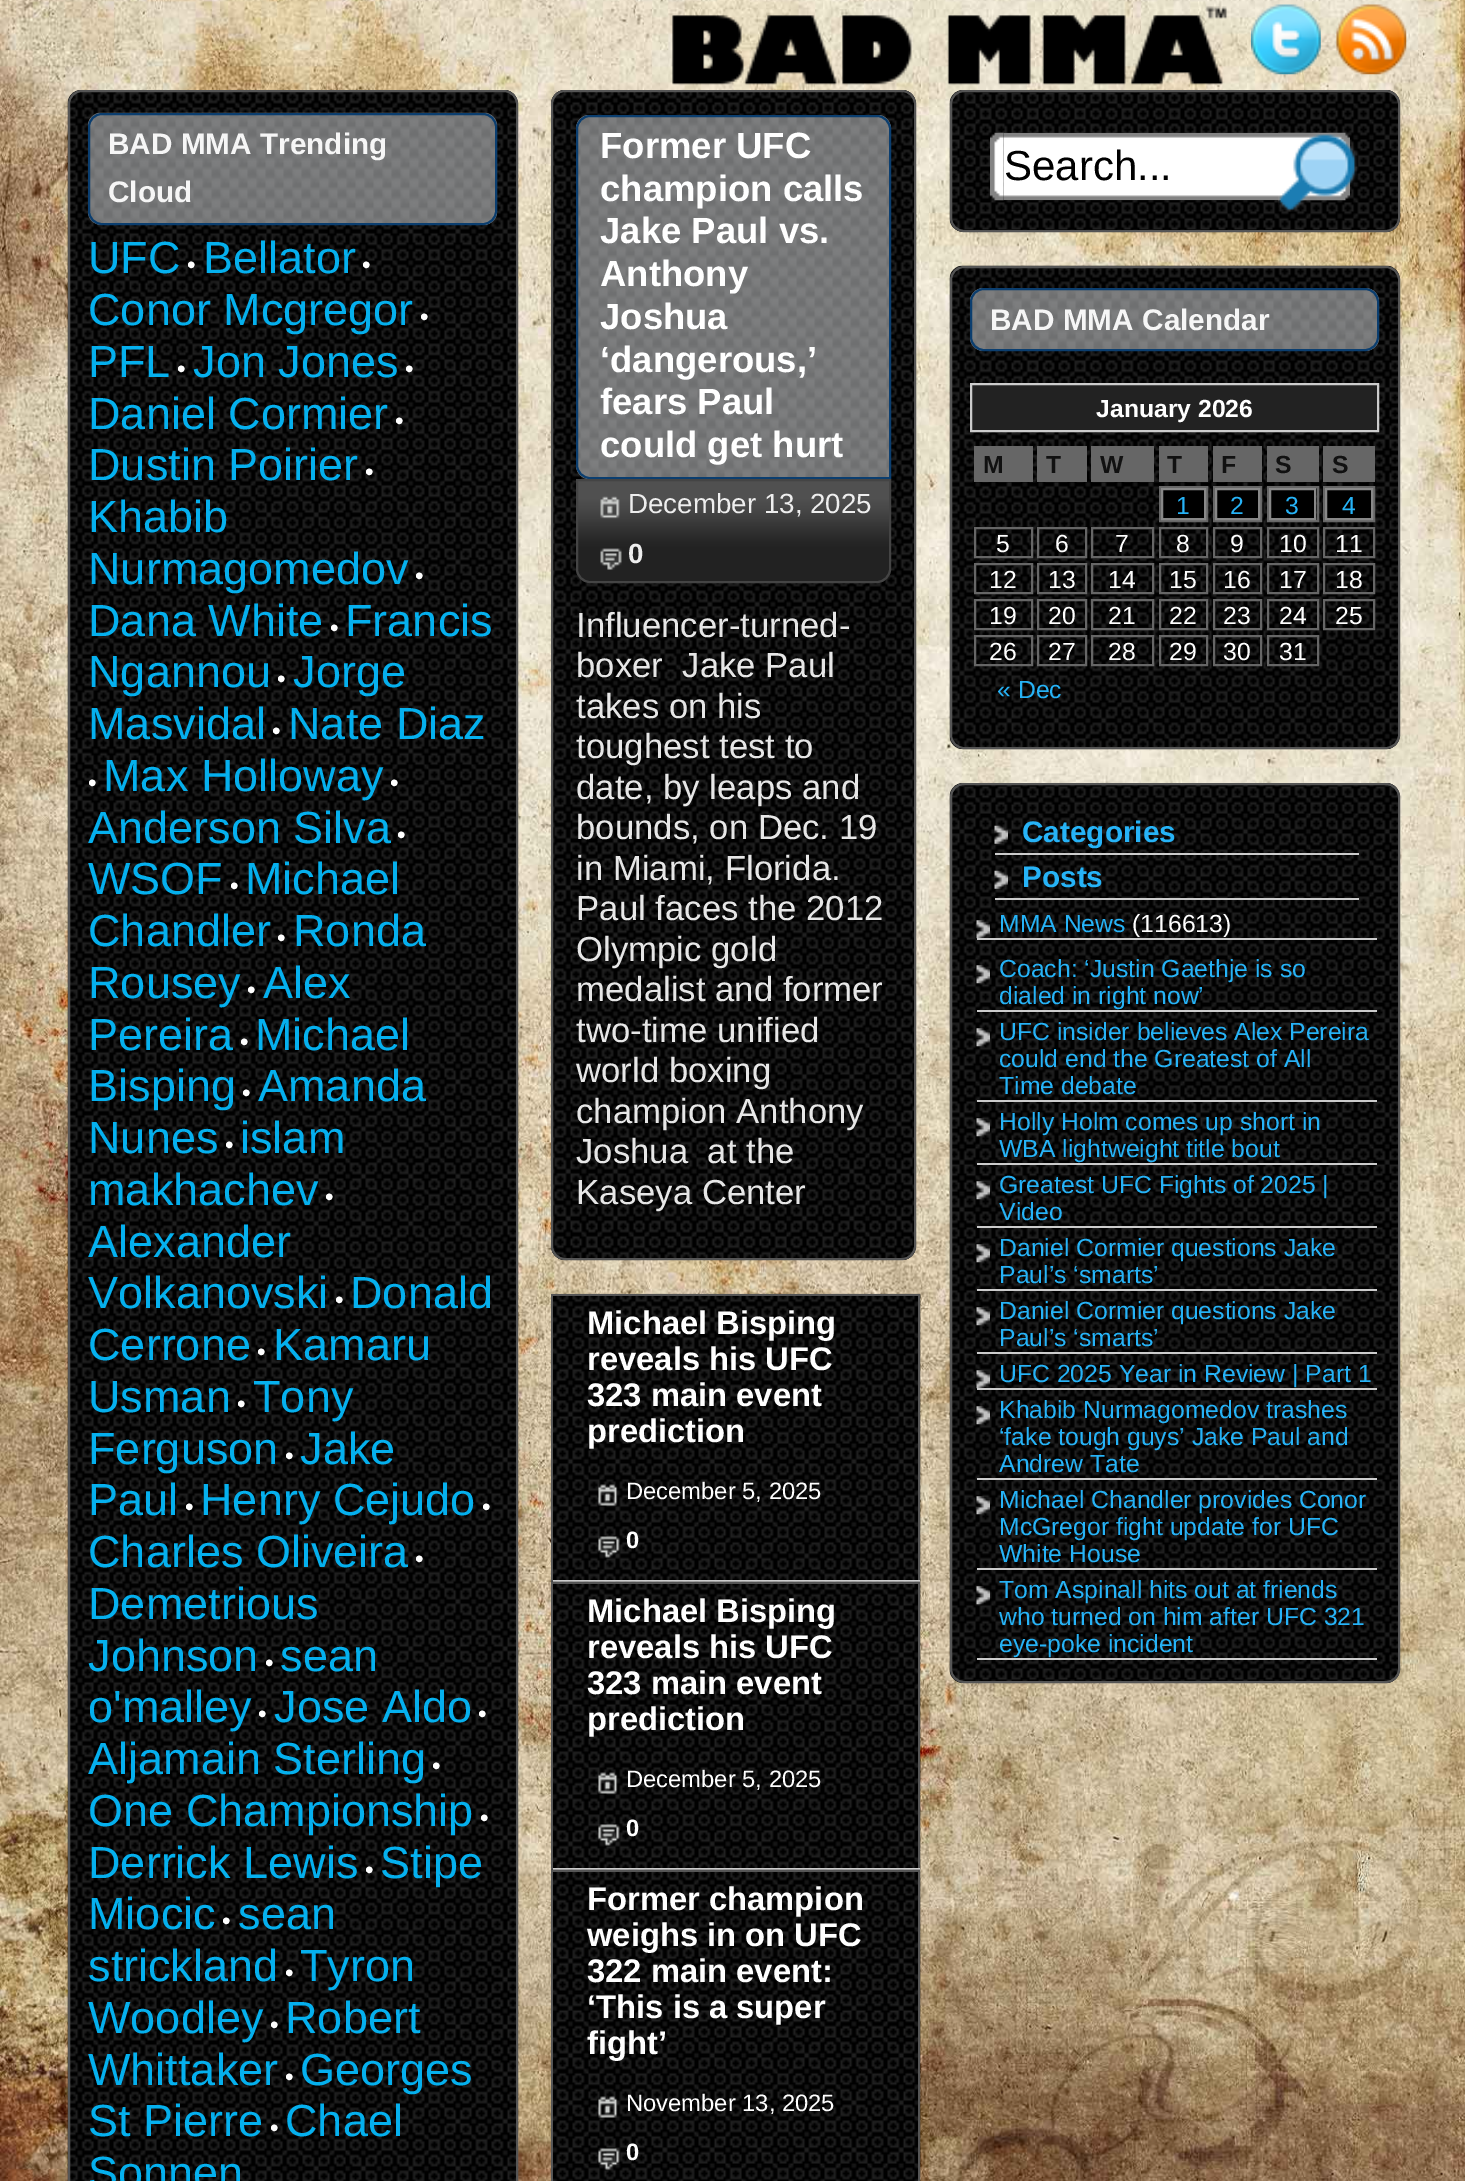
%!PS
<< /PageSize [1465 2181] >> setpagedevice
/rgb { 3 { 255 div 3 1 roll } repeat setrgbcolor } def
/font { [ exch dup neg 0 0 3 -1 roll 0 0 ] selectfont } def
/text { moveto show } def
/roundrect { 5 dict begin { /r /h /w /y /x } { exch def } forall
  x r add y moveto x w add y 2 copy h add r arct x w add y h add x 1 index r arct
  x y h add x y r arct x y 2 copy exch w add exch r arct closepath end } def
/picture { 5 dict begin { /h /w /y /x /name } { exch def } forall
  gsave x y translate w h scale
  w h 8 [w 0 0 h 0 0] name (r) file false 3 colorimage grestore end } def
0 2181 translate 1 -1 scale
4 setmiterlimit
255 255 255 rgb
0 0 1465 2181 rectfill
(img_01.rgb) 0 0 1465 2181 picture
(img_02.rgb) 672 6 555 79 picture
(img_03.rgb) 1251 4 70 71 picture
(img_04.rgb) 1336 4 71 71 picture
(img_05.rgb) 67 90 451 2091 picture
85 85 85 rgb
2 setlinewidth
69 91 448 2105 13 roundrect stroke
(img_06.rgb) 87 112 411 113 picture
11 62 111 rgb
89 114 407 110 13 roundrect stroke
(img_07.rgb) 551 90 365 1170 picture
85 85 85 rgb
552 91 363 1168 13 roundrect stroke
(img_08.rgb) 576 115 315 364 picture
11 62 111 rgb
590 116 moveto 287 0 rlineto 7 0 13 6 13 13 rcurveto 0 349 rlineto -300 0 rlineto -7 0 -13 -6 -13 -13 rcurveto 0 -336 rlineto 0 -7 6 -13 13 -13 rcurveto closepath stroke
(img_09.rgb) 576 481 315 101 picture
68 68 68 rgb
577 480 moveto 313 0 rlineto 0 89 rlineto 0 7 -6 13 -13 13 rcurveto -287 0 rlineto -7 0 -13 -6 -13 -13 rcurveto closepath stroke
(img_10.rgb) 600 496 20 23 picture
(img_11.rgb) 600 548 22 22 picture
(img_12.rgb) 551 1293 370 289 picture
85 85 85 rgb
551 1294 369 2 rectfill
918 1294 2 288 rectfill
204 204 204 rgb
551 1580 369 2 rectfill
85 85 85 rgb
551 1294 2 288 rectfill
(img_13.rgb) 598 1484 20 22 picture
(img_14.rgb) 598 1536 22 22 picture
(img_15.rgb) 551 1581 370 289 picture
551 1582 369 2 rectfill
918 1582 2 288 rectfill
204 204 204 rgb
551 1868 369 2 rectfill
85 85 85 rgb
551 1582 2 288 rectfill
(img_13.rgb) 598 1772 20 22 picture
(img_14.rgb) 598 1824 22 22 picture
(img_16.rgb) 551 1869 370 312 picture
551 1870 369 2 rectfill
918 1870 2 311 rectfill
551 1870 2 311 rectfill
(img_17.rgb) 598 2096 20 22 picture
(img_18.rgb) 598 2148 22 22 picture
(img_19.rgb) 949 90 451 142 picture
951 91 448 140 13 roundrect stroke
(img_21.rgb) 1003 132 275 69 picture
(img_20.rgb) 990 132 14 69 picture
(img_22.rgb) 1278 132 72 69 picture
(img_23.rgb) 1278 133 79 79 picture
(img_24.rgb) 949 265 451 485 picture
951 267 448 481 13 roundrect stroke
(img_25.rgb) 969 288 411 63 picture
11 62 111 rgb
971 289 407 61 13 roundrect stroke
34 34 34 rgb
971 384 moveto 407 0 rlineto 0 47 rlineto -407 0 rlineto closepath gsave fill grestore
204 204 204 rgb
stroke
102 102 102 rgb
974 446 59 36 rectfill
1037 446 50 36 rectfill
1091 446 63 36 rectfill
1159 446 49 36 rectfill
1213 446 49 36 rectfill
1267 446 52 36 rectfill
1323 446 52 36 rectfill
1160 487 47 34 rectstroke
0 0 0 rgb
1162 489 moveto 43 0 rlineto 0 30 rlineto -43 0 rlineto closepath gsave fill grestore
136 136 136 rgb
stroke
102 102 102 rgb
1214 487 47 34 rectstroke
0 0 0 rgb
1216 489 moveto 43 0 rlineto 0 30 rlineto -43 0 rlineto closepath gsave fill grestore
136 136 136 rgb
stroke
102 102 102 rgb
1268 487 50 34 rectstroke
0 0 0 rgb
1270 489 moveto 45 0 rlineto 0 30 rlineto -45 0 rlineto closepath gsave fill grestore
136 136 136 rgb
stroke
102 102 102 rgb
1324 487 50 34 rectstroke
0 0 0 rgb
1326 489 moveto 46 0 rlineto 0 30 rlineto -46 0 rlineto closepath gsave fill grestore
136 136 136 rgb
stroke
102 102 102 rgb
975 528 57 29 rectstroke
1038 528 48 29 rectstroke
1092 528 61 29 rectstroke
1160 528 47 29 rectstroke
1214 528 47 29 rectstroke
1268 528 50 29 rectstroke
1324 528 50 29 rectstroke
975 564 57 29 rectstroke
1038 564 48 29 rectstroke
1092 564 61 29 rectstroke
1160 564 47 29 rectstroke
1214 564 47 29 rectstroke
1268 564 50 29 rectstroke
1324 564 50 29 rectstroke
975 600 57 29 rectstroke
1038 600 48 29 rectstroke
1092 600 61 29 rectstroke
1160 600 47 29 rectstroke
1214 600 47 29 rectstroke
1268 600 50 29 rectstroke
1324 600 50 29 rectstroke
975 636 57 29 rectstroke
1038 636 48 29 rectstroke
1092 636 61 29 rectstroke
1160 636 47 29 rectstroke
1214 636 47 29 rectstroke
1268 636 50 29 rectstroke
(img_26.rgb) 949 783 451 900 picture
85 85 85 rgb
951 784 448 898 13 roundrect stroke
(img_27.rgb) 994 825 14 19 picture
204 204 204 rgb
995 853 364 2 rectfill
(img_28.rgb) 994 870 14 19 picture
995 898 364 2 rectfill
(img_29.rgb) 976 920 14 19 picture
977 938 400 2 rectfill
(img_30.rgb) 976 965 14 19 picture
977 1010 400 2 rectfill
(img_31.rgb) 976 1028 14 19 picture
977 1100 400 2 rectfill
(img_32.rgb) 976 1118 14 19 picture
977 1163 400 2 rectfill
(img_33.rgb) 976 1181 14 19 picture
977 1226 400 2 rectfill
(img_34.rgb) 976 1244 14 19 picture
977 1289 400 2 rectfill
(img_35.rgb) 976 1307 14 19 picture
977 1352 400 2 rectfill
(img_33.rgb) 976 1370 14 19 picture
977 1388 400 2 rectfill
(img_31.rgb) 976 1406 14 19 picture
977 1478 400 2 rectfill
(img_32.rgb) 976 1496 14 19 picture
977 1568 400 2 rectfill
(img_36.rgb) 976 1586 14 19 picture
977 1658 400 2 rectfill
/LiberationSans-Bold 29.75 font
246 246 246 rgb
(BAD MMA Trending) 108 154 text
(Cloud) 108 202 text
/LiberationSans-Regular 45 font
5 176 238 rgb
(UFC) 88 273 text
/LiberationSans-Regular 24.75 font
255 255 255 rgb
(•) 187 273 text
/LiberationSans-Regular 45 font
5 176 238 rgb
(Bellator) 203 273 text
/LiberationSans-Regular 24.75 font
255 255 255 rgb
(•) 362 273 text
/LiberationSans-Regular 45 font
5 176 238 rgb
(Conor Mcgregor) 88 325 text
/LiberationSans-Regular 24.75 font
255 255 255 rgb
(•) 420 325 text
/LiberationSans-Regular 45 font
5 176 238 rgb
(PFL) 88 377 text
/LiberationSans-Regular 24.75 font
255 255 255 rgb
(•) 177 377 text
/LiberationSans-Regular 45 font
5 176 238 rgb
(Jon Jones) 193 377 text
/LiberationSans-Regular 24.75 font
255 255 255 rgb
(•) 405 377 text
/LiberationSans-Regular 45 font
5 176 238 rgb
(Daniel Cormier) 88 429 text
/LiberationSans-Regular 24.75 font
255 255 255 rgb
(•) 395 429 text
/LiberationSans-Regular 45 font
5 176 238 rgb
(Dustin Poirier) 88 480 text
/LiberationSans-Regular 24.75 font
255 255 255 rgb
(•) 365 480 text
/LiberationSans-Regular 45 font
5 176 238 rgb
(Khabib) 88 532 text
(Nurmagomedov) 88 584 text
/LiberationSans-Regular 24.75 font
255 255 255 rgb
(•) 415 584 text
/LiberationSans-Regular 45 font
5 176 238 rgb
(Dana White) 88 636 text
/LiberationSans-Regular 24.75 font
255 255 255 rgb
(•) 330 636 text
/LiberationSans-Regular 45 font
5 176 238 rgb
(Francis) 345 636 text
(Ngannou) 88 687 text
/LiberationSans-Regular 24.75 font
255 255 255 rgb
(•) 277 687 text
/LiberationSans-Regular 45 font
5 176 238 rgb
(Jorge) 293 687 text
(Masvidal) 88 739 text
/LiberationSans-Regular 24.75 font
255 255 255 rgb
(•) 272 739 text
/LiberationSans-Regular 45 font
5 176 238 rgb
(Nate Diaz) 288 739 text
/LiberationSans-Regular 24.75 font
255 255 255 rgb
(•) 88 791 text
/LiberationSans-Regular 45 font
5 176 238 rgb
(Max Holloway) 103 791 text
/LiberationSans-Regular 24.75 font
255 255 255 rgb
(•) 390 791 text
/LiberationSans-Regular 45 font
5 176 238 rgb
(Anderson Silva) 88 843 text
/LiberationSans-Regular 24.75 font
255 255 255 rgb
(•) 397 843 text
/LiberationSans-Regular 45 font
5 176 238 rgb
(WSOF) 88 894 text
/LiberationSans-Regular 24.75 font
255 255 255 rgb
(•) 230 894 text
/LiberationSans-Regular 45 font
5 176 238 rgb
(Michael) 245 894 text
(Chandler) 88 946 text
/LiberationSans-Regular 24.75 font
255 255 255 rgb
(•) 277 946 text
/LiberationSans-Regular 45 font
5 176 238 rgb
(Ronda) 293 946 text
(Rousey) 88 998 text
/LiberationSans-Regular 24.75 font
255 255 255 rgb
(•) 247 998 text
/LiberationSans-Regular 45 font
5 176 238 rgb
(Alex) 263 998 text
(Pereira) 88 1050 text
/LiberationSans-Regular 24.75 font
255 255 255 rgb
(•) 240 1050 text
/LiberationSans-Regular 45 font
5 176 238 rgb
(Michael) 255 1050 text
(Bisping) 88 1101 text
/LiberationSans-Regular 24.75 font
255 255 255 rgb
(•) 242 1101 text
/LiberationSans-Regular 45 font
5 176 238 rgb
(Amanda) 258 1101 text
(Nunes) 88 1153 text
/LiberationSans-Regular 24.75 font
255 255 255 rgb
(•) 225 1153 text
/LiberationSans-Regular 45 font
5 176 238 rgb
(islam) 240 1153 text
(makhachev) 88 1205 text
/LiberationSans-Regular 24.75 font
255 255 255 rgb
(•) 325 1205 text
/LiberationSans-Regular 45 font
5 176 238 rgb
(Alexander) 88 1257 text
(Volkanovski) 88 1308 text
/LiberationSans-Regular 24.75 font
255 255 255 rgb
(•) 335 1308 text
/LiberationSans-Regular 45 font
5 176 238 rgb
(Donald) 350 1308 text
(Cerrone) 88 1360 text
/LiberationSans-Regular 24.75 font
255 255 255 rgb
(•) 257 1360 text
/LiberationSans-Regular 45 font
5 176 238 rgb
(Kamaru) 273 1360 text
(Usman) 88 1412 text
/LiberationSans-Regular 24.75 font
255 255 255 rgb
(•) 237 1412 text
/LiberationSans-Regular 45 font
5 176 238 rgb
(Tony) 253 1412 text
(Ferguson) 88 1464 text
/LiberationSans-Regular 24.75 font
255 255 255 rgb
(•) 285 1464 text
/LiberationSans-Regular 45 font
5 176 238 rgb
(Jake) 300 1464 text
(Paul) 88 1515 text
/LiberationSans-Regular 24.75 font
255 255 255 rgb
(•) 185 1515 text
/LiberationSans-Regular 45 font
5 176 238 rgb
(Henry Cejudo) 200 1515 text
/LiberationSans-Regular 24.75 font
255 255 255 rgb
(•) 482 1515 text
/LiberationSans-Regular 45 font
5 176 238 rgb
(Charles Oliveira) 88 1567 text
/LiberationSans-Regular 24.75 font
255 255 255 rgb
(•) 415 1567 text
/LiberationSans-Regular 45 font
5 176 238 rgb
(Demetrious) 88 1619 text
(Johnson) 88 1671 text
/LiberationSans-Regular 24.75 font
255 255 255 rgb
(•) 265 1671 text
/LiberationSans-Regular 45 font
5 176 238 rgb
(sean) 280 1671 text
(o'malley) 88 1722 text
/LiberationSans-Regular 24.75 font
255 255 255 rgb
(•) 258 1722 text
/LiberationSans-Regular 45 font
5 176 238 rgb
(Jose Aldo) 274 1722 text
/LiberationSans-Regular 24.75 font
255 255 255 rgb
(•) 478 1722 text
/LiberationSans-Regular 45 font
5 176 238 rgb
(Aljamain Sterling) 88 1774 text
/LiberationSans-Regular 24.75 font
255 255 255 rgb
(•) 432 1774 text
/LiberationSans-Regular 45 font
5 176 238 rgb
(One Championship) 88 1826 text
/LiberationSans-Regular 24.75 font
255 255 255 rgb
(•) 480 1826 text
/LiberationSans-Regular 45 font
5 176 238 rgb
(Derrick Lewis) 88 1878 text
/LiberationSans-Regular 24.75 font
255 255 255 rgb
(•) 365 1878 text
/LiberationSans-Regular 45 font
5 176 238 rgb
(Stipe) 380 1878 text
(Miocic) 88 1929 text
/LiberationSans-Regular 24.75 font
255 255 255 rgb
(•) 222 1929 text
/LiberationSans-Regular 45 font
5 176 238 rgb
(sean) 238 1929 text
(strickland) 88 1981 text
/LiberationSans-Regular 24.75 font
255 255 255 rgb
(•) 285 1981 text
/LiberationSans-Regular 45 font
5 176 238 rgb
(Tyron) 300 1981 text
(Woodley) 88 2033 text
/LiberationSans-Regular 24.75 font
255 255 255 rgb
(•) 270 2033 text
/LiberationSans-Regular 45 font
5 176 238 rgb
(Robert) 285 2033 text
(Whittaker) 88 2085 text
/LiberationSans-Regular 24.75 font
255 255 255 rgb
(•) 285 2085 text
/LiberationSans-Regular 45 font
5 176 238 rgb
(Georges) 300 2085 text
(St Pierre) 88 2136 text
/LiberationSans-Regular 24.75 font
255 255 255 rgb
(•) 270 2136 text
/LiberationSans-Regular 45 font
5 176 238 rgb
(Chael) 285 2136 text
(Sonnen) 88 2188 text
/LiberationSans-Bold 36.5 font
255 255 255 rgb
(Former UFC) 600 158 text
(champion calls) 600 201 text
(Jake Paul vs.) 600 243 text
(Anthony) 600 286 text
(Joshua) 600 329 text
(‘dangerous,’) 600 372 text
(fears Paul) 600 414 text
(could get hurt) 600 457 text
/LiberationSans-Regular 27.75 font
238 238 238 rgb
(December 13, 2025) 628 513 text
/LiberationSans-Bold 27.75 font
(0) 628 563 text
/LiberationSans-Regular 34.75 font
231 231 231 rgb
(Influencer-turned-) 576 637 text
(boxer  Jake Paul) 576 677 text
(takes on his) 576 718 text
(toughest test to) 576 758 text
(date, by leaps and) 576 799 text
(bounds, on Dec. 19) 576 839 text
(in Miami, Florida.) 576 880 text
(Paul faces the 2012) 576 920 text
(Olympic gold) 576 961 text
(medalist and former) 576 1001 text
(two-time unified) 576 1042 text
(world boxing) 576 1082 text
(champion Anthony) 576 1123 text
(Joshua  at the) 576 1163 text
(Kaseya Center) 576 1204 text
/LiberationSans-Bold 32.75 font
255 255 255 rgb
(Michael Bisping) 587 1334 text
(reveals his UFC) 587 1370 text
(323 main event) 587 1406 text
(prediction) 587 1442 text
/LiberationSans-Regular 23.75 font
(December 5, 2025) 626 1499 text
/LiberationSans-Bold 23.75 font
(0) 626 1548 text
/LiberationSans-Bold 32.75 font
(Michael Bisping) 587 1622 text
(reveals his UFC) 587 1658 text
(323 main event) 587 1694 text
(prediction) 587 1730 text
/LiberationSans-Regular 23.75 font
(December 5, 2025) 626 1787 text
/LiberationSans-Bold 23.75 font
(0) 626 1836 text
/LiberationSans-Bold 32.75 font
(Former champion) 587 1910 text
(weighs in on UFC) 587 1946 text
(322 main event:) 587 1982 text
(‘This is a super) 587 2018 text
(fight’) 587 2054 text
/LiberationSans-Regular 23.75 font
(November 13, 2025) 626 2111 text
/LiberationSans-Bold 23.75 font
(0) 626 2160 text
/LiberationSans-Regular 42 font
0 0 0 rgb
(Search...) 1004 180 text
/LiberationSans-Bold 29.75 font
246 246 246 rgb
(BAD MMA Calendar) 990 330 text
/LiberationSans-Bold 24.75 font
255 255 255 rgb
(January 2026) 1096 417 text
17 17 17 rgb
(M) 983 473 text
(T) 1046 473 text
(W) 1100 473 text
(T) 1167 473 text
(F) 1221 473 text
(S) 1275 473 text
(S) 1332 473 text
/LiberationSans-Regular 24.75 font
38 179 247 rgb
(1) 1176 514 text
(2) 1230 514 text
(3) 1285 514 text
(4) 1342 514 text
255 255 255 rgb
(5) 996 552 text
(6) 1055 552 text
(7) 1115 552 text
(8) 1176 552 text
(9) 1230 552 text
(10) 1279 552 text
(11) 1335 552 text
(12) 989 588 text
(13) 1048 588 text
(14) 1108 588 text
(15) 1169 588 text
(16) 1223 588 text
(17) 1279 588 text
(18) 1335 588 text
(19) 989 624 text
(20) 1048 624 text
(21) 1108 624 text
(22) 1169 624 text
(23) 1223 624 text
(24) 1279 624 text
(25) 1335 624 text
(26) 989 660 text
(27) 1048 660 text
(28) 1108 660 text
(29) 1169 660 text
(30) 1223 660 text
(31) 1279 660 text
38 179 247 rgb
(« Dec) 997 698 text
/LiberationSans-Bold 29.75 font
(Categories) 1022 842 text
(Posts) 1022 887 text
/LiberationSans-Regular 24.75 font
(MMA News) 999 932 text
255 255 255 rgb
(\(116613\)) 1132 932 text
38 179 247 rgb
(Coach: ‘Justin Gaethje is so) 999 977 text
(dialed in right now’) 999 1004 text
(UFC insider believes Alex Pereira) 999 1040 text
(could end the Greatest of All) 999 1067 text
(Time debate) 999 1094 text
(Holly Holm comes up short in) 999 1130 text
(WBA lightweight title bout) 999 1157 text
(Greatest UFC Fights of 2025 |) 999 1193 text
(Video) 999 1220 text
(Daniel Cormier questions Jake) 999 1256 text
(Paul’s ‘smarts’) 999 1283 text
(Daniel Cormier questions Jake) 999 1319 text
(Paul’s ‘smarts’) 999 1346 text
(UFC 2025 Year in Review | Part 1) 999 1382 text
(Khabib Nurmagomedov trashes) 999 1418 text
(‘fake tough guys’ Jake Paul and) 999 1445 text
(Andrew Tate) 999 1472 text
(Michael Chandler provides Conor) 999 1508 text
(McGregor fight update for UFC) 999 1535 text
(White House) 999 1562 text
(Tom Aspinall hits out at friends) 999 1598 text
(who turned on him after UFC 321) 999 1625 text
(eye-poke incident) 999 1652 text
showpage
